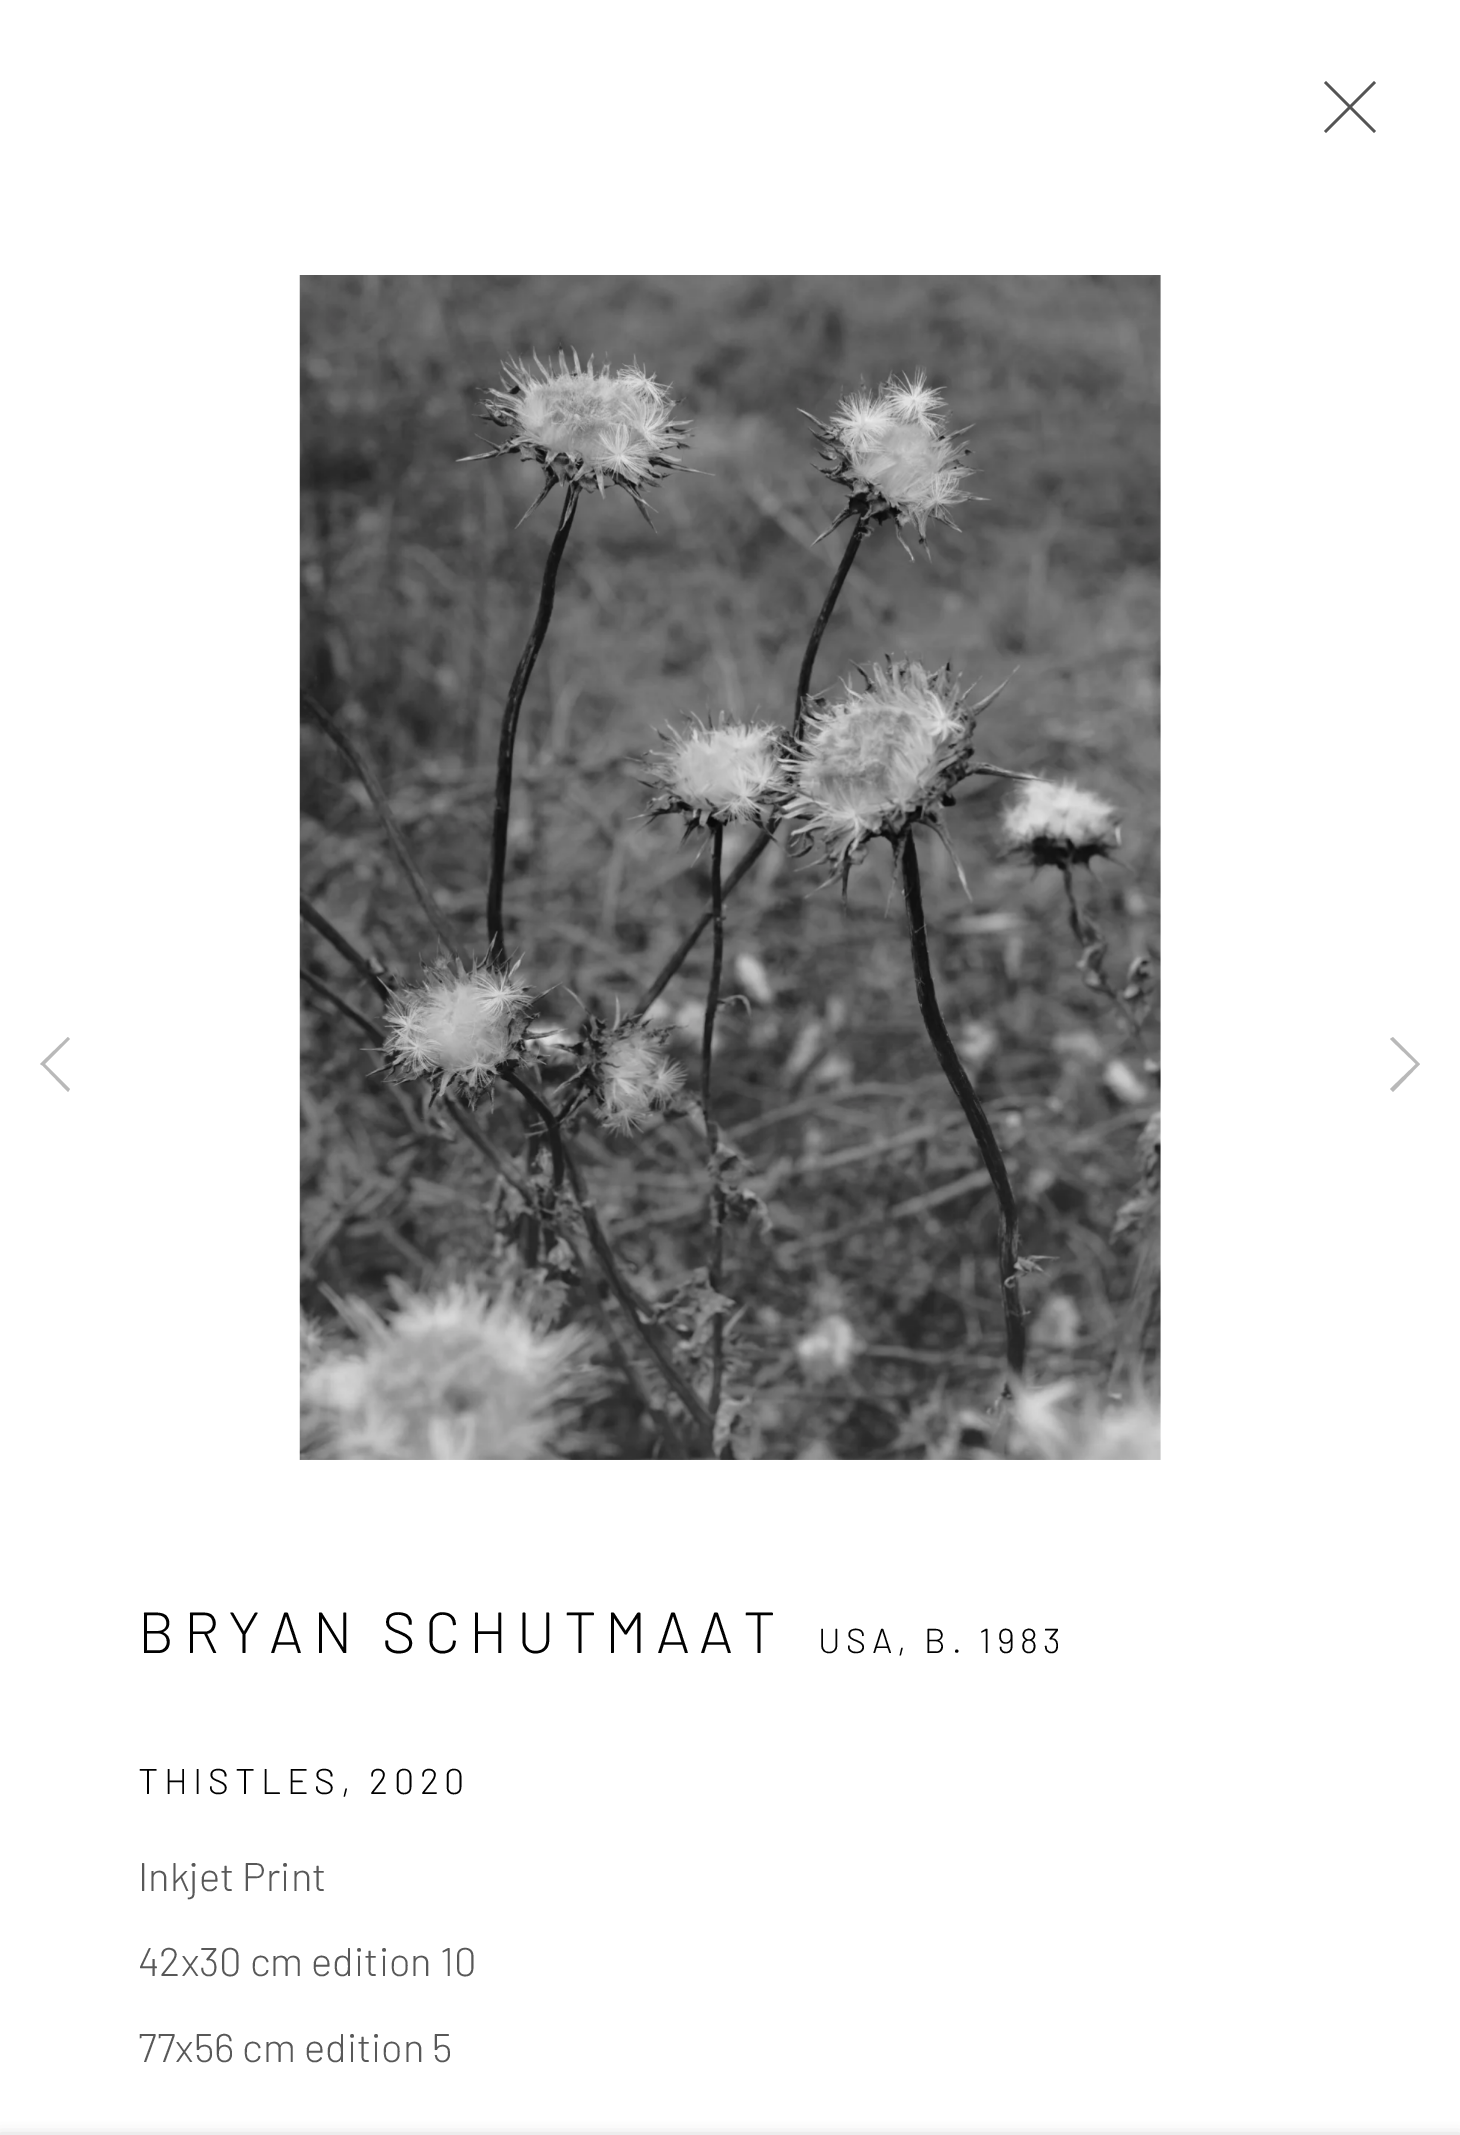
%!PS
<< /PageSize [1460 2135] /PageUsesTransparency true >> setpagedevice
/rgb { 3 { 255 div 3 1 roll } repeat setrgbcolor } def
/font { [ exch dup neg 0 0 3 -1 roll 0 0 ] selectfont } def
/text { moveto show } def
/alpha { dup .setfillconstantalpha .setstrokeconstantalpha } def
/roundrect { 5 dict begin { /r /h /w /y /x } { exch def } forall
  x r add y moveto x w add y 2 copy h add r arct x w add y h add x 1 index r arct
  x y h add x y r arct x y 2 copy exch w add exch r arct closepath end } def
/shadow { 12 dict begin { /a /b /q /h /w /y /x } { exch def } forall gsave /was 0 def
  9 -2 -9 { dup b mul 4 div /e exch def 1 sub .425 mul 2.718 exch exp 1 add a .99 .min exch div /now exch def
    1 1 now sub 1 was sub div sub alpha /was now def
    w h .min e 2 mul add 0 gt { x e sub y e sub w e 2 mul add h e 2 mul add
      q e add b .6 mul add w h .min 2 div e add .min 0 .max roundrect fill } if } for grestore end } def
/picture { 5 dict begin { /h /w /y /x /name } { exch def } forall
  gsave x y translate w h scale
  w h 8 [w 0 0 h 0 0] name (r) file false 3 colorimage grestore end } def
0 .pushpdf14devicefilter
0 2135 translate 1 -1 scale
4 setmiterlimit
255 255 255 rgb
0 0 1460 2135 rectfill
85 85 85 rgb
1376 83 moveto -2 -2 rlineto -24 24 rlineto -24 -24 rlineto -2 2 rlineto 24 24 rlineto -24 24 rlineto 2 2 rlineto 24 -24 rlineto 24 24 rlineto 2 -2 rlineto -24 -24 rlineto closepath fill
185 185 185 rgb
43 1066 moveto 25 26 rlineto 2 -3 rlineto -25 -25 rlineto 25 -25 rlineto -2 -2 rlineto -28 27 rlineto closepath fill
1420 1064 moveto -27 -27 rlineto -3 2 rlineto 26 25 rlineto -26 25 rlineto 3 3 rlineto closepath fill
(img_01.rgb) 299 275 862 1185 picture
0 0 0 rgb
0 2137 1460 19 0 7 0.23 shadow
/Barlow-Light 57.75 font
1 1 1 rgb
138 1653 moveto 9.25 0 (BRYAN SCHUTMAAT) ashow
/Barlow-Light 34.5 font
818 1653 moveto 5.5 0 (USA, B. 1983) ashow
/Barlow-Light 35.75 font
138 1794 moveto 5.75 0 (THISTLES, 2020) ashow
/Barlow-Light 39.9 font
88 88 88 rgb
(Inkjet Print) 138 1891 text
(42x30 cm edition 10) 138 1976 text
(77x56 cm edition 5) 138 2062 text
.poppdf14devicefilter showpage
